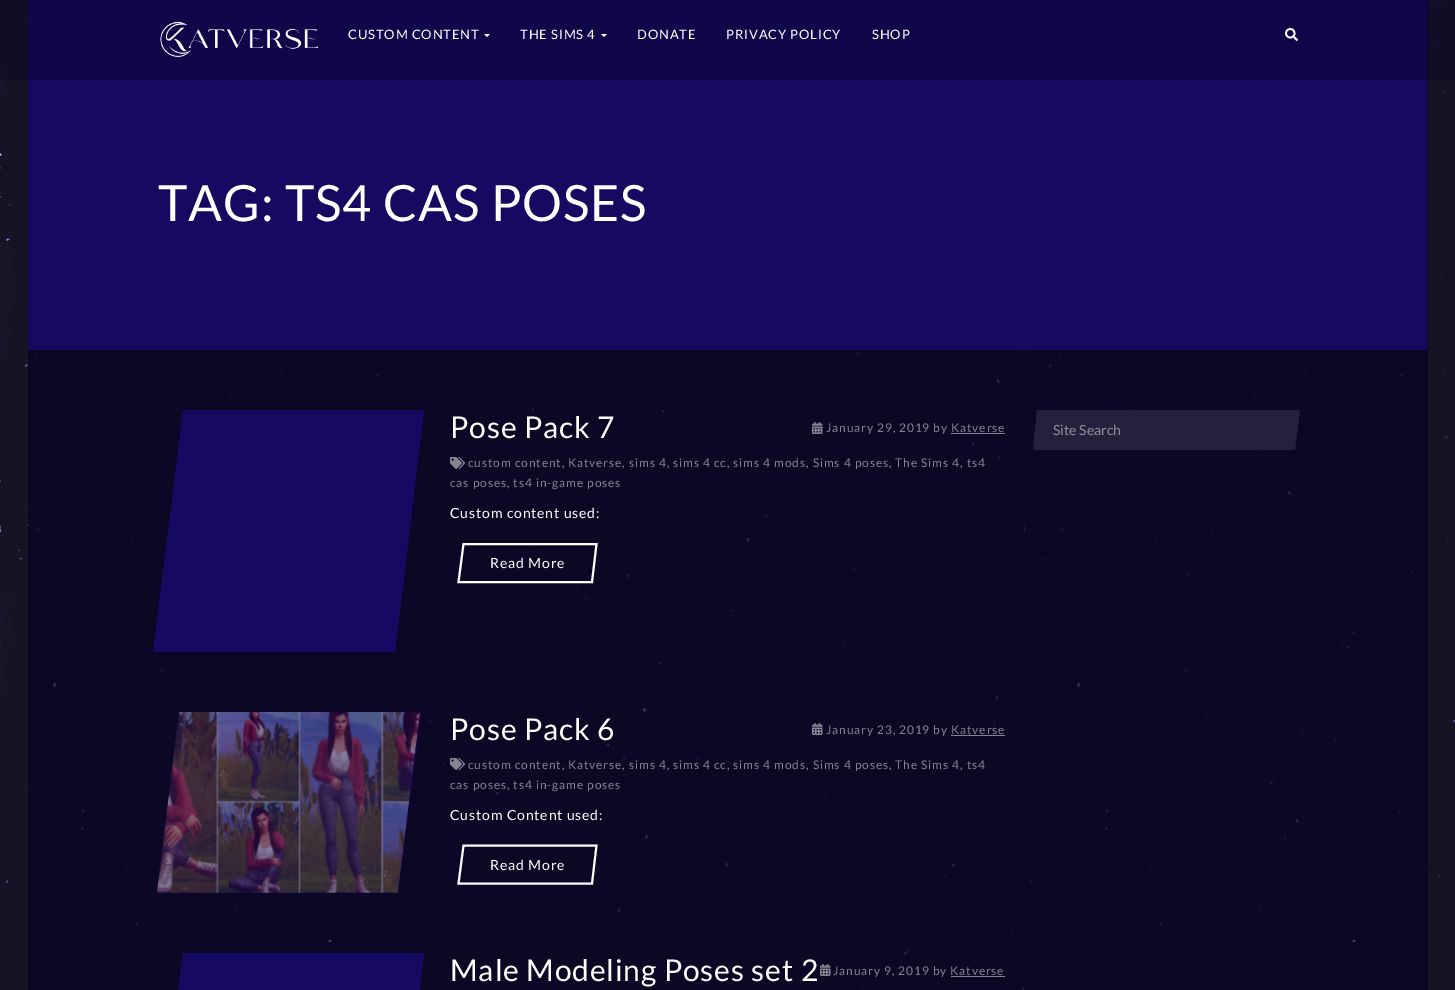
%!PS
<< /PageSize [1455 990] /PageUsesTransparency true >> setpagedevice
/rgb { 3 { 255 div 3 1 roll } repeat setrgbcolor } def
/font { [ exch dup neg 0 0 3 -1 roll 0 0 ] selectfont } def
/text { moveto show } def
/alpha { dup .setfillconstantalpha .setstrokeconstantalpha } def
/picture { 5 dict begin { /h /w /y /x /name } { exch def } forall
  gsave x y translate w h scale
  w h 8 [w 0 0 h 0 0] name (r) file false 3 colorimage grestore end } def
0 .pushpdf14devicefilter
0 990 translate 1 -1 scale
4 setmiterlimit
255 255 255 rgb
0 0 1455 990 rectfill
(img_01.rgb) 0 0 1455 990 picture
22 9 98 rgb
28 0 1399 350 rectfill
0.4 alpha
8 3 37 rgb
0 0 1455 80 rectfill
1 alpha
(img_02.rgb) 160 21 158 37 picture
255 255 255 rgb
484 34 moveto 6 0 rlineto -3 3 rlineto closepath fill
601 34 moveto 6 0 rlineto -3 3 rlineto closepath fill
(img_03.rgb) 1285 28 13 13 picture
22 9 98 rgb
183 410 moveto 241 0 rlineto -29 242 rlineto -242 0 rlineto closepath fill
(img_04.rgb) 812 422 11 12 picture
133 131 146 rgb
951 433 54 1 rectfill
(img_05.rgb) 450 457 15 12 picture
255 255 255 rgb
2 setlinewidth
463.5 544 moveto 133 0 rlineto -4.5 38 rlineto -133.5 0 rlineto closepath stroke
22 9 98 rgb
179 712 moveto 242 0 rlineto -23 181 rlineto -241 0 rlineto closepath fill
(img_06.rgb) 157 712 263 181 picture
(img_04.rgb) 812 723 11 12 picture
133 131 146 rgb
951 735 54 1 rectfill
(img_05.rgb) 450 758 15 12 picture
255 255 255 rgb
463.5 845.5 moveto 133 0 rlineto -4.5 38 rlineto -133.5 0 rlineto closepath stroke
22 9 98 rgb
183 953 moveto 241 0 rlineto -29 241 rlineto -242 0 rlineto closepath fill
(img_04.rgb) 820 964 11 12 picture
133 131 146 rgb
951 976 54 1 rectfill
0.1 alpha
255 255 255 rgb
1037 410 moveto 263 0 rlineto -5 40 rlineto -262 0 rlineto closepath fill
/Lato-Regular 13 font
1 alpha
348 39 moveto 0.85 0 (CUSTOM CONTENT) ashow
520 39 moveto 0.85 0 (THE SIMS 4) ashow
637 39 moveto 0.85 0 (DONATE) ashow
726 39 moveto 0.85 0 (PRIVACY POLICY) ashow
872 39 moveto 0.85 0 (SHOP) ashow
/Lato-Regular 50 font
158 221 moveto 0.85 0 (TAG: TS4 CAS POSES) ashow
/Lato-Regular 30 font
450 438 moveto 0.85 0 (Pose Pack 7) ashow
/Lato-Regular 12 font
133 131 146 rgb
826 432 moveto 0.85 0 (January 29, 2019 by Katverse) ashow
468 467 moveto 0.85 0 (custom content, Katverse, sims 4, sims 4 cc, sims 4 mods, Sims 4 poses, The Sims 4, ts4) ashow
450 487 moveto 0.85 0 (cas poses, ts4 in-game poses) ashow
/Lato-Regular 14 font
255 255 255 rgb
450 518 moveto 0.85 0 (Custom content used:) ashow
490 568 moveto 0.85 0 (Read More) ashow
/Lato-Regular 30 font
450 740 moveto 0.85 0 (Pose Pack 6) ashow
/Lato-Regular 12 font
133 131 146 rgb
826 734 moveto 0.85 0 (January 23, 2019 by Katverse) ashow
468 769 moveto 0.85 0 (custom content, Katverse, sims 4, sims 4 cc, sims 4 mods, Sims 4 poses, The Sims 4, ts4) ashow
450 789 moveto 0.85 0 (cas poses, ts4 in-game poses) ashow
/Lato-Regular 14 font
255 255 255 rgb
450 820 moveto 0.85 0 (Custom Content used:) ashow
490 870 moveto 0.85 0 (Read More) ashow
/Lato-Regular 30 font
450 981 moveto 0.85 0 (Male Modeling Poses set 2) ashow
/Lato-Regular 12 font
133 131 146 rgb
833 975 moveto 0.85 0 (January 9, 2019 by Katverse) ashow
/Lato-Regular 14 font
145 143 157 rgb
(Site Search) 1053 435 text
.poppdf14devicefilter showpage
